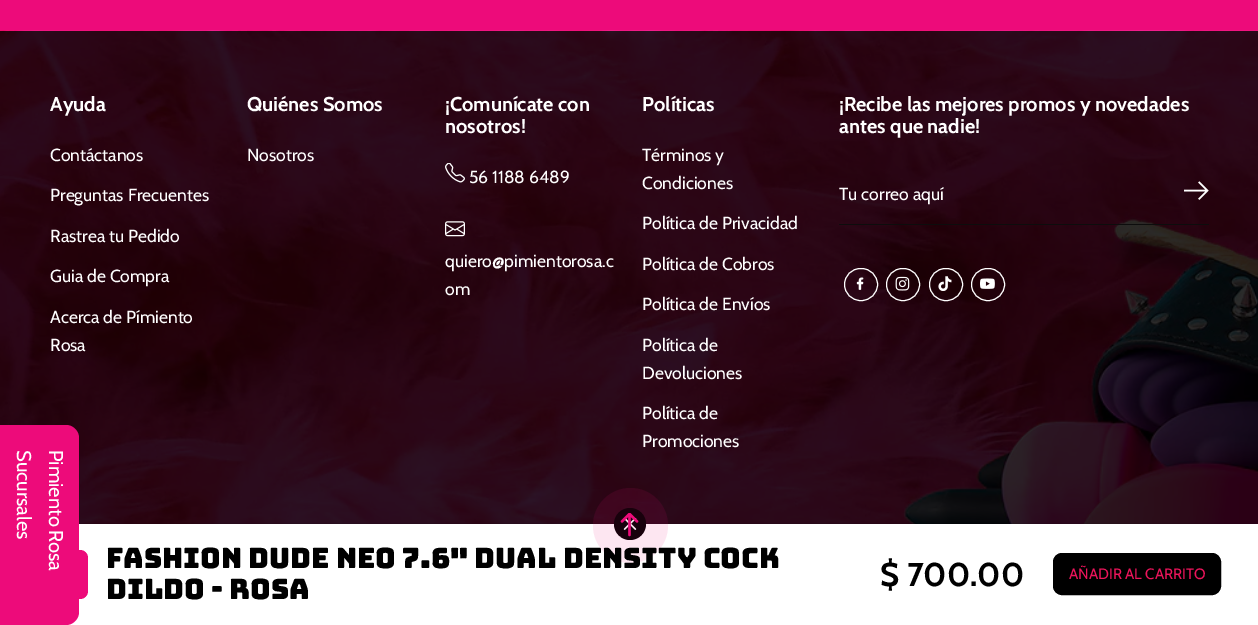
%!PS
<< /PageSize [1258 625] /PageUsesTransparency true >> setpagedevice
/rgb { 3 { 255 div 3 1 roll } repeat setrgbcolor } def
/font { [ exch dup neg 0 0 3 -1 roll 0 0 ] selectfont } def
/text { moveto show } def
/alpha { dup .setfillconstantalpha .setstrokeconstantalpha } def
/circle { newpath 0 360 arc closepath } def
/roundrect { 5 dict begin { /r /h /w /y /x } { exch def } forall
  x r add y moveto x w add y 2 copy h add r arct x w add y h add x 1 index r arct
  x y h add x y r arct x y 2 copy exch w add exch r arct closepath end } def
/shadow { 12 dict begin { /a /b /q /h /w /y /x } { exch def } forall gsave /was 0 def
  9 -2 -9 { dup b mul 4 div /e exch def 1 sub .425 mul 2.718 exch exp 1 add a .99 .min exch div /now exch def
    1 1 now sub 1 was sub div sub alpha /was now def
    w h .min e 2 mul add 0 gt { x e sub y e sub w e 2 mul add h e 2 mul add
      q e add b .6 mul add w h .min 2 div e add .min 0 .max roundrect fill } if } for grestore end } def
/picture { 5 dict begin { /h /w /y /x /name } { exch def } forall
  gsave x y translate w h scale
  w h 8 [w 0 0 h 0 0] name (r) file false 3 colorimage grestore end } def
0 .pushpdf14devicefilter
0 625 translate 1 -1 scale
4 setmiterlimit
237 11 122 rgb
0 0 1258 625 rectfill
(img_01.rgb) 0 30 1258 494 picture
(img_02.rgb) 445 163 20 20 picture
(img_03.rgb) 445 221 20 16 picture
13 13 13 rgb
839 224 370 1 rectfill
(img_04.rgb) 1184 181 25 19 picture
(img_05.rgb) 856 277 8 13 picture
255 255 255 rgb
844.5 268.5 33 32 16 roundrect stroke
(img_06.rgb) 895 276 15 15 picture
886.5 268.5 33 32 16 roundrect stroke
(img_07.rgb) 938 276 14 15 picture
929.5 268.5 33 32 16 roundrect stroke
(img_08.rgb) 980 278 15 11 picture
971.5 268.5 33 32 16 roundrect stroke
0 0 0 rgb
-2 523 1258 101 0 1 0.09 shadow
255 255 255 rgb
66 524 1192 101 rectfill
237 11 122 rgb
38 550 50 49 8 roundrect fill
0 425 moveto 66 0 rlineto 7 0 13 6 13 13 rcurveto 0 174 rlineto 0 7 -6 13 -13 13 rcurveto -66 0 rlineto closepath fill
0 0 0 rgb
630 524 16 circle fill
(img_09.rgb) 623 518 14 12 picture
1053.5 553.5 167 41 8.5 roundrect gsave fill grestore
stroke
0.1 alpha
237 11 122 rgb
630.5 525.5 37.5 circle fill
1 alpha
(img_10.rgb) 620 513 19 24 picture
/Cabin-Bold 20 font
255 255 255 rgb
(Ayuda) 50 111 text
/Cabin-Regular 17.5 font
(Contáctanos) 50 161 text
(Preguntas Frecuentes) 50 201 text
(Rastrea tu Pedido) 50 242 text
(Guia de Compra) 50 282 text
(Acerca de Pímiento) 50 323 text
(Rosa) 50 351 text
/Cabin-Bold 20 font
(Quiénes Somos) 247 111 text
/Cabin-Regular 17.5 font
(Nosotros) 247 161 text
/Cabin-Bold 20 font
(¡Comunícate con) 445 111 text
(nosotros!) 445 133 text
/Cabin-Regular 17.5 font
(56 1188 6489) 469 183 text
(quiero@pimientorosa.c) 445 267 text
(om) 445 295 text
/Cabin-Bold 20 font
(Políticas) 642 111 text
/Cabin-Regular 17.5 font
(Términos y) 642 161 text
(Condiciones) 642 189 text
(Política de Privacidad) 642 229 text
(Política de Cobros) 642 270 text
(Política de Envíos) 642 310 text
(Política de) 642 351 text
(Devoluciones) 642 379 text
(Política de) 642 419 text
(Promociones) 642 447 text
/Cabin-Bold 20 font
(¡Recibe las mejores promos y novedades) 839 111 text
(antes que nadie!) 839 133 text
/Cabin-Regular 17.5 font
(Tu correo aquí) 839 200 text
/Cabin-Regular 20 font
gsave 17 450 translate 90 rotate 0 0 moveto (Sucursales) show grestore
gsave 49 450 translate 90 rotate 0 0 moveto -1 0 32 (Pimiento Rosa) widthshow grestore
/Bungee-Regular 28.05 font
0 0 0 rgb
(FASHION DUDE NEO 7.6" DUAL DENSITY COCK) 106 568 text
(DILDO - ROSA) 106 599 text
/Cabin-Bold 33 font
($ 700.00) 880 586 text
/Cabin-Regular 15 font
237 20 91 rgb
(AÑADIR AL CARRITO) 1069 579 text
.poppdf14devicefilter showpage
